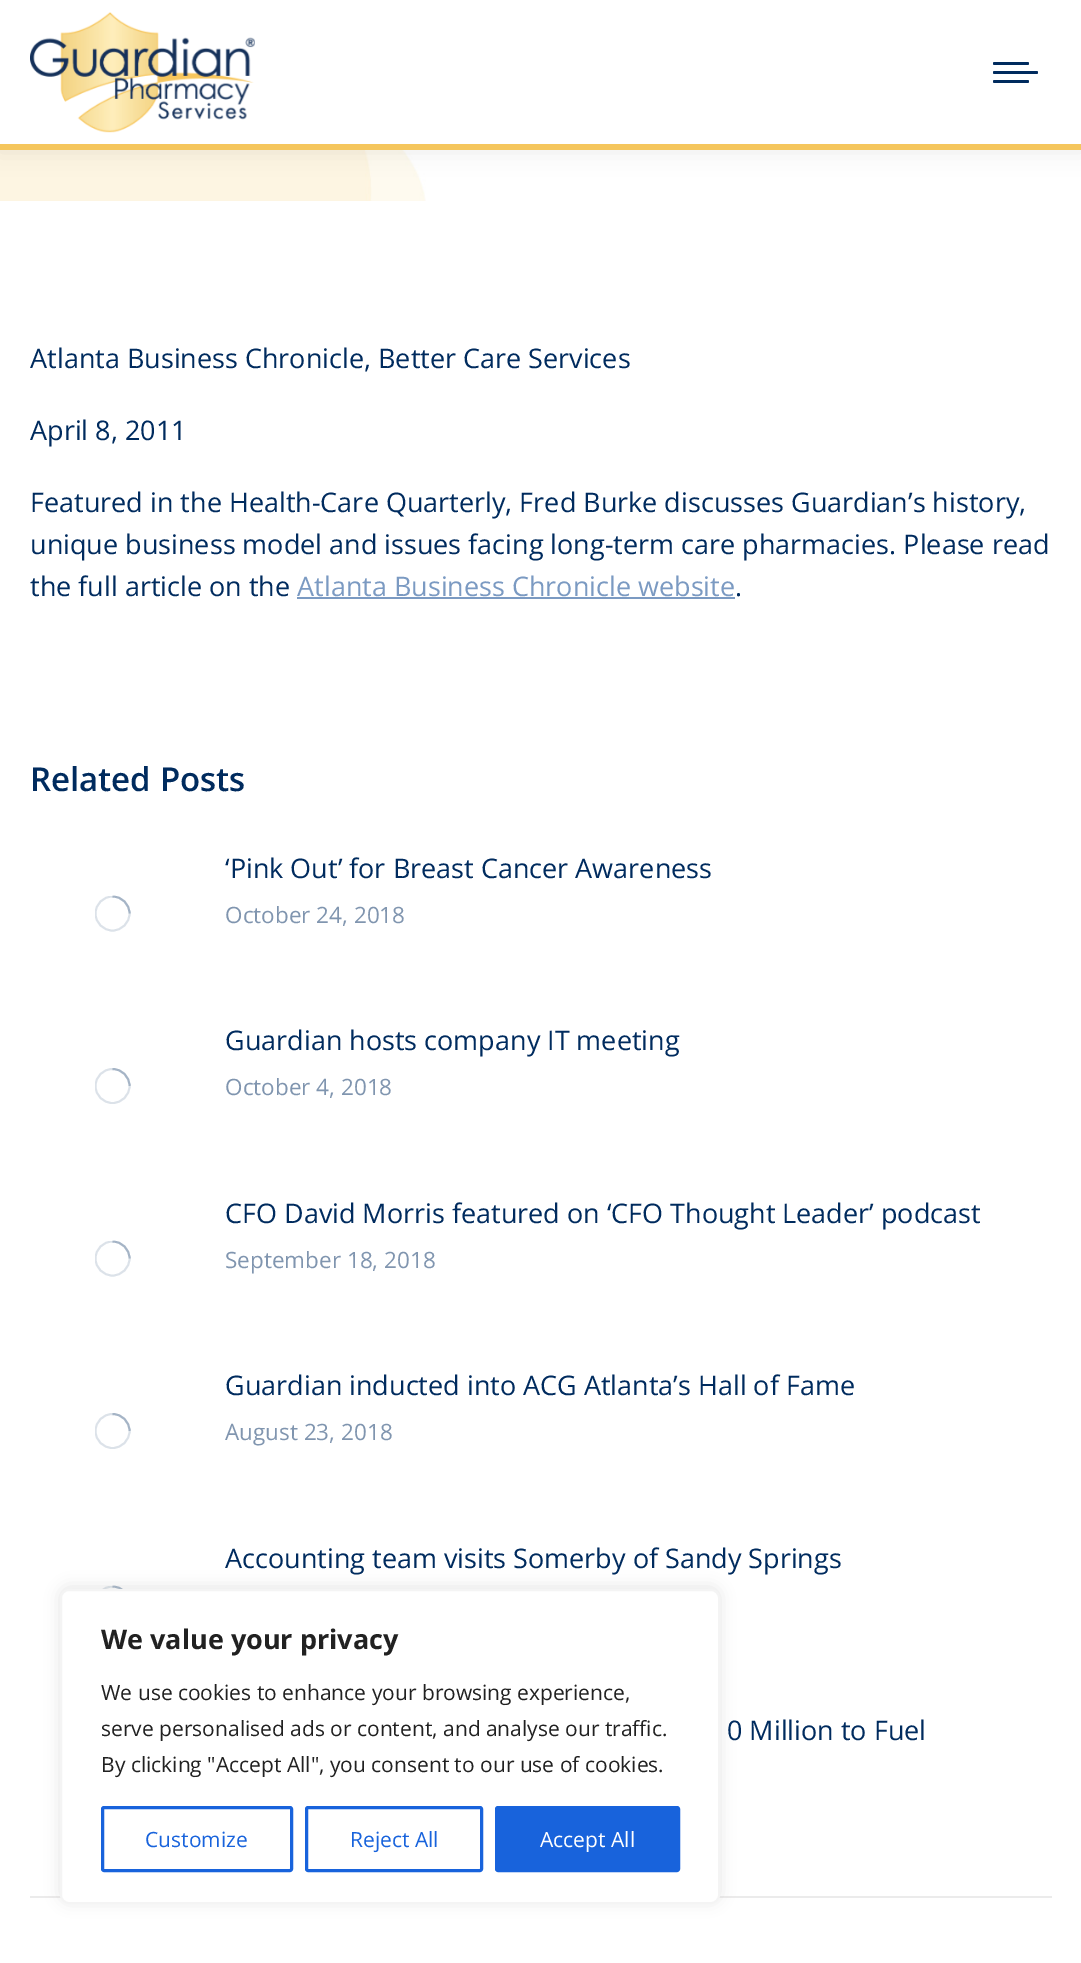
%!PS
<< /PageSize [1081 1963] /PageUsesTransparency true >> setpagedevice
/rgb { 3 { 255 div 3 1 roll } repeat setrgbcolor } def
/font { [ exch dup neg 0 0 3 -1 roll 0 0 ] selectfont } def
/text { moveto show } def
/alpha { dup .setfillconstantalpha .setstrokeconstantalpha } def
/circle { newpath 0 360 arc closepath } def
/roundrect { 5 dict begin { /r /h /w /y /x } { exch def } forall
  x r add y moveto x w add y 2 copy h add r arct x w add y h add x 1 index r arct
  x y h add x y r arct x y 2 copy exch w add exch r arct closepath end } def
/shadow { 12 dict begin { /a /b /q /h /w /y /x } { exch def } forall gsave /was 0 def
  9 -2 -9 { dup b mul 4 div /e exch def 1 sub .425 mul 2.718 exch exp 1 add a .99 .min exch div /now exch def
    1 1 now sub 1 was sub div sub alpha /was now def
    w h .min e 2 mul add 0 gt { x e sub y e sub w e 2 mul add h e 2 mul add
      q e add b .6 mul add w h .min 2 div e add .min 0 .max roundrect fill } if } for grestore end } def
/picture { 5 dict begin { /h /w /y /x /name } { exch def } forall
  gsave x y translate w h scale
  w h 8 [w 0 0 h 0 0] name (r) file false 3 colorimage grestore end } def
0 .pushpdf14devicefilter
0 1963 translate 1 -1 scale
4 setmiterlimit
255 255 255 rgb
0 0 1081 1963 rectfill
(img_02.rgb) 0 150 1081 51 picture
0 0 0 rgb
-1 -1 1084 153 0 11 0.07 shadow
255 255 255 rgb
0 0 1081 144 rectfill
245 198 93 rgb
0 144 1081 6 rectfill
(img_01.rgb) 30 12 225 121 picture
0 43 94 rgb
993 62 36 3 1.5 roundrect fill
993 71 45 3 1.5 roundrect fill
993 80 36 3 1.5 roundrect fill
123 154 194 rgb
297 597 438 2 rectfill
235 235 235 rgb
30 1896 1022 2 rectfill
gsave
95 896 36 36 rectclip
220 226 233 rgb
1.9 setlinewidth
112.5 913.5 17 circle stroke
grestore
0.25 alpha
0 43 94 rgb
1.9 setlinewidth
129.5 913.5 moveto 0 -9.5 -7.5 -17 -17 -17 rcurveto stroke
gsave
95 1068 36 36 rectclip
1 alpha
220 226 233 rgb
112.5 1086 17 circle stroke
grestore
129.5 1086 moveto 0 -9.5 -7.5 -17 -17 -17 rcurveto stroke
gsave
95 1241 36 36 rectclip
1 alpha
220 226 233 rgb
112.5 1258.5 17 circle stroke
grestore
129.5 1258.5 moveto 0 -9.5 -7.5 -17 -17 -17 rcurveto stroke
gsave
95 1413 36 36 rectclip
1 alpha
220 226 233 rgb
112.5 1431 17 circle stroke
grestore
129.5 1431 moveto 0 -9.5 -7.5 -17 -17 -17 rcurveto stroke
gsave
95 1586 36 36 rectclip
1 alpha
220 226 233 rgb
112.5 1603.5 17 circle stroke
grestore
129.5 1603.5 moveto 0 -9.5 -7.5 -17 -17 -17 rcurveto stroke
1 alpha
172 171 171 rgb
60 1587 660 315 9 7.5 0.3 shadow
255 255 255 rgb
61 1590 658 313 8 roundrect gsave fill grestore
244 244 244 rgb
2 setlinewidth
stroke
24 99 220 rgb
3 setlinewidth
102.5 1807.5 189 63 1.5 roundrect stroke
306.5 1807.5 175 63 1.5 roundrect stroke
496.5 1807.5 182 63 1.5 roundrect gsave fill grestore
stroke
/OpenSans-Regular 27 font
0 43 94 rgb
(Atlanta Business Chronicle, Better Care Services) 30 368 text
(April 8, 2011) 30 440 text
(Featured in the Health-Care Quarterly, Fred Burke discusses Guardian’s history,) 30 512 text
(unique business model and issues facing long-term care pharmacies. Please read) 30 554 text
(the full article on the) 30 596 text
123 154 194 rgb
(Atlanta Business Chronicle website) 297 596 text
0 43 94 rgb
(.) 735 596 text
/OpenSans-SemiBold 33 font
(Related Posts) 30 791 text
/OpenSans-Regular 27 font
(‘Pink Out’ for Breast Cancer Awareness) 225 878 text
/OpenSans-Regular 22.5 font
128 149 175 rgb
(October 24, 2018) 225 923 text
/OpenSans-Regular 27 font
0 43 94 rgb
(Guardian hosts company IT meeting) 225 1050 text
/OpenSans-Regular 22.5 font
128 149 175 rgb
(October 4, 2018) 225 1095 text
/OpenSans-Regular 27 font
0 43 94 rgb
(CFO David Morris featured on ‘CFO Thought Leader’ podcast) 225 1223 text
/OpenSans-Regular 22.5 font
128 149 175 rgb
(September 18, 2018) 225 1268 text
/OpenSans-Regular 27 font
0 43 94 rgb
(Guardian inducted into ACG Atlanta’s Hall of Fame) 225 1395 text
/OpenSans-Regular 22.5 font
128 149 175 rgb
(August 23, 2018) 225 1440 text
/OpenSans-Regular 27 font
0 43 94 rgb
(Accounting team visits Somerby of Sandy Springs) 225 1568 text
(0 Million to Fuel) 727 1740 text
/OpenSans-Bold 27 font
33 33 33 rgb
(We value your privacy) 101 1649 text
/OpenSans-Regular 21 font
(We use cookies to enhance your browsing experience,) 101 1700 text
(serve personalised ads or content, and analyse our traffic.) 101 1736 text
(By clicking "Accept All", you consent to our use of cookies.) 101 1772 text
24 99 220 rgb
(Customize) 145 1847 text
(Reject All) 350 1847 text
255 255 255 rgb
(Accept All) 540 1847 text
.poppdf14devicefilter showpage
